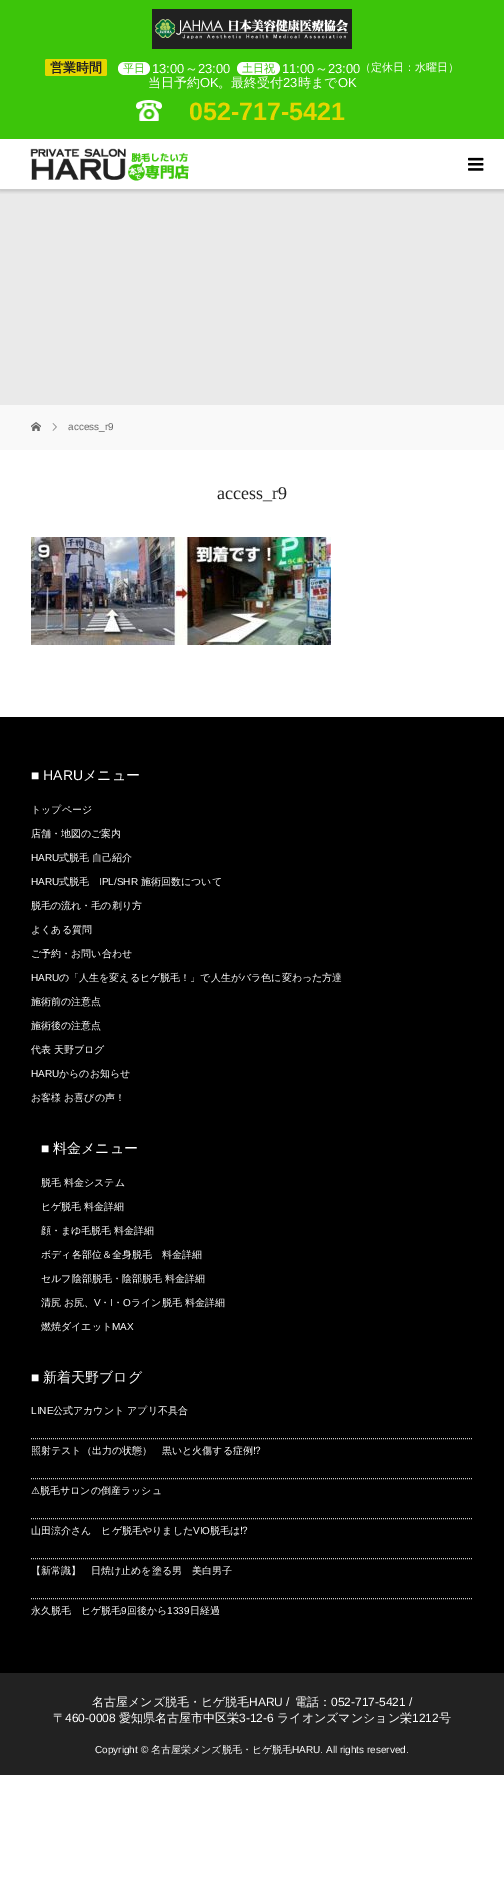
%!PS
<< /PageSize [504 1891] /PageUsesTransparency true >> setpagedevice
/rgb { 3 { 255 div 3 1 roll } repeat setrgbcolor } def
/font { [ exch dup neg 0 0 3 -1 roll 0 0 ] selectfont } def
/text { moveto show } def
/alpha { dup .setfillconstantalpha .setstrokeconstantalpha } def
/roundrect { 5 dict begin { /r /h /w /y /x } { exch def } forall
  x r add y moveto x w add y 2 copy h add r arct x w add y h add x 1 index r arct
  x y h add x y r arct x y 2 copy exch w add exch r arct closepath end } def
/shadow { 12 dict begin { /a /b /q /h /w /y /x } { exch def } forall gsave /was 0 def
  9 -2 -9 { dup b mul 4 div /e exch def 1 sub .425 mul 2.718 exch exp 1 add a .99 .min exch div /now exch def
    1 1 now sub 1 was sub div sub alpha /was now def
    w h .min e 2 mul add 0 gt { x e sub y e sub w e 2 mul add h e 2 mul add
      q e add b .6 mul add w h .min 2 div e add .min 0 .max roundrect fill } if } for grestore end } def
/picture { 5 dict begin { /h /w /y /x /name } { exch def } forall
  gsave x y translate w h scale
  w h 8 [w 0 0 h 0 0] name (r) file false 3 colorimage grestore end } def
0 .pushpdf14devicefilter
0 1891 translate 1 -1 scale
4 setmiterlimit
255 255 255 rgb
0 0 504 1891 rectfill
234 234 234 rgb
0 190 504 215 rectfill
gsave
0 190 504 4 rectclip
0 0 0 rgb
0 1 504 190 0 2 0.2 shadow
grestore
204 204 204 rgb
0 189 504 1 rectfill
60 197 10 rgb
0 0 504 139 rectfill
(img_01.rgb) 152 9 200 40 picture
230 214 0 rgb
45 59 62 17 2 roundrect fill
255 255 255 rgb
118 62 32 13 6.5 roundrect fill
237 62 43 13 6.5 roundrect fill
(img_02.rgb) 136 100 26 21 picture
(img_03.rgb) 30 148 159 33 picture
(img_04.rgb) 468 157 16 14 picture
249 249 249 rgb
0 405 504 45 rectfill
(img_05.rgb) 31 422 10 9 picture
(img_06.rgb) 52 423 5 8 picture
(img_07.rgb) 31 537 300 108 picture
0 0 0 rgb
0 717 504 956 rectfill
204 204 204 rgb
[1 1] 0 setdash
31 1438.5 moveto 442 0 rlineto stroke
31 1478.5 moveto 442 0 rlineto stroke
31 1518.5 moveto 442 0 rlineto stroke
31 1558.5 moveto 442 0 rlineto stroke
31 1598.5 moveto 442 0 rlineto stroke
34 34 34 rgb
0 1673 504 102 rectfill
/WenQuanYiZenHei-Bold 13 font
(営業時間) 50 72 text
/WenQuanYiZenHei-Medium 11 font
60 197 10 rgb
(平日) 123 72 text
/LiberationSans-Regular 13 font
255 255 255 rgb
(13:00) 152 73 text
/WenQuanYiZenHei-Medium 13 font
(～) 185 73 text
/LiberationSans-Regular 13 font
(23:00) 198 73 text
/WenQuanYiZenHei-Medium 11 font
60 197 10 rgb
(土日祝) 242 72 text
/LiberationSans-Regular 13 font
255 255 255 rgb
(11:00) 282 73 text
/WenQuanYiZenHei-Medium 13 font
(～) 315 73 text
/LiberationSans-Regular 13 font
(23:00) 328 73 text
/WenQuanYiZenHei-Medium 11 font
(（定休日：水曜日）) 360 71 text
/WenQuanYiZenHei-Medium 13 font
(当日予約) 148 87 text
/LiberationSans-Regular 13 font
(OK) 200 87 text
/WenQuanYiZenHei-Medium 13 font
(。最終受付) 218 87 text
/LiberationSans-Regular 13 font
(23) 283 87 text
/WenQuanYiZenHei-Medium 13 font
(時まで) 298 87 text
/LiberationSans-Regular 13 font
(OK) 338 87 text
/LiberationSans-Bold 25 font
230 214 0 rgb
(052-717-5421) 189 120 text
/LiberationSans-Regular 10 font
102 102 102 rgb
(access_r9) 68 430 text
/LiberationSerif-Regular 18 font
34 34 34 rgb
(access_r9) 217 499 text
/LiberationSans-Regular 14 font
255 255 255 rgb
(■ HARU) 31 780 text
/WenQuanYiZenHei-Medium 14 font
(メニュー) 83 780 text
/WenQuanYiZenHei-Medium 10 font
(トップページ) 31 813 text
(店舗・地図のご案内) 31 837 text
/LiberationSans-Regular 10 font
(HARU) 31 861 text
/WenQuanYiZenHei-Medium 10 font
(式脱毛 自己紹介) 59 861 text
/LiberationSans-Regular 10 font
(HARU) 31 885 text
/WenQuanYiZenHei-Medium 10 font
(式脱毛) 59 885 text
/LiberationSans-Regular 10 font
(IPL/SHR) 99 885 text
/WenQuanYiZenHei-Medium 10 font
(施術回数について) 141 885 text
(脱毛の流れ・毛の剃り方) 31 909 text
(よくある質問) 31 933 text
(ご予約・お問い合わせ) 31 957 text
/LiberationSans-Regular 10 font
(HARU) 31 981 text
/WenQuanYiZenHei-Medium 10 font
(の「人生を変えるヒゲ脱毛！」で人生がバラ色に変わった方達) 59 981 text
(施術前の注意点) 31 1005 text
(施術後の注意点) 31 1029 text
(代表 天野ブログ) 31 1053 text
/LiberationSans-Regular 10 font
(HARU) 31 1077 text
/WenQuanYiZenHei-Medium 10 font
(からのお知らせ) 59 1077 text
(お客様 お喜びの声！) 31 1101 text
/LiberationSans-Regular 14 font
(■) 41 1153 text
/WenQuanYiZenHei-Medium 14 font
(料金メニュー) 53 1153 text
/WenQuanYiZenHei-Medium 10 font
(脱毛 料金システム) 41 1186 text
(ヒゲ脱毛 料金詳細) 41 1210 text
(顔・まゆ毛脱毛 料金詳細) 41 1234 text
(ボディ各部位＆全身脱毛　料金詳細) 41 1258 text
(セルフ陰部脱毛・陰部脱毛 料金詳細) 41 1282 text
(清尻 お尻、) 41 1306 text
/LiberationSans-Regular 10 font
(V) 94 1306 text
(O) 123 1306 text
/WenQuanYiZenHei-Medium 10 font
(ライン脱毛 料金詳細) 131 1306 text
(・ ・) 100 1306 text
/LiberationSans-Regular 10 font
(I) 110 1306 text
/WenQuanYiZenHei-Medium 10 font
(燃焼ダイエット) 41 1330 text
/LiberationSans-Regular 10 font
(MAX) 112 1330 text
/LiberationSans-Regular 14 font
(■) 31 1382 text
/WenQuanYiZenHei-Medium 14 font
(新着天野ブログ) 43 1382 text
/LiberationSans-Regular 10 font
(LINE) 31 1414 text
/WenQuanYiZenHei-Medium 10 font
(公式アカウント アプリ不具合) 53 1414 text
(照射テスト（出力の状態）　黒いと火傷する症例) 31 1454 text
/IPAPGothic-Regular 10 font
(⁉) 253 1454 text
/DejaVuSans-Regular 10 font
(⚠) 31 1494 text
/WenQuanYiZenHei-Medium 10 font
(脱毛サロンの倒産ラッシュ) 40 1494 text
(山田涼介さん　ヒゲ脱毛やりました) 31 1534 text
/LiberationSans-Regular 10 font
(VIO) 193 1534 text
/WenQuanYiZenHei-Medium 10 font
(脱毛は) 210 1534 text
/IPAPGothic-Regular 10 font
(⁉) 240 1534 text
/WenQuanYiZenHei-Medium 10 font
(【新常識】　日焼け止めを塗る男　美白男子) 31 1574 text
(永久脱毛　ヒゲ脱毛) 31 1614 text
/LiberationSans-Regular 10 font
(9) 121 1614 text
/WenQuanYiZenHei-Medium 10 font
(回後から) 127 1614 text
/LiberationSans-Regular 10 font
(1339) 167 1614 text
/WenQuanYiZenHei-Medium 10 font
(日経過) 190 1614 text
/WenQuanYiZenHei-Medium 12 font
(名古屋メンズ脱毛・ヒゲ脱毛) 92 1706 text
/LiberationSans-Regular 12 font
(HARU /) 249 1706 text
/WenQuanYiZenHei-Medium 12 font
(電話：) 295 1706 text
/LiberationSans-Regular 12 font
(052-717-5421 /) 331 1706 text
/WenQuanYiZenHei-Medium 12 font
(〒) 53 1722 text
/LiberationSans-Regular 12 font
(460-0008) 65 1722 text
/WenQuanYiZenHei-Medium 12 font
(愛知県名古屋市中区栄) 119 1722 text
/LiberationSans-Regular 12 font
(3-12-6) 239 1722 text
/WenQuanYiZenHei-Medium 12 font
(ライオンズマンション栄) 277 1722 text
/LiberationSans-Regular 12 font
(1212) 412 1722 text
/WenQuanYiZenHei-Medium 12 font
(号) 439 1722 text
/LiberationSans-Regular 10 font
(Copyright ©) 95 1753 text
/WenQuanYiZenHei-Medium 10 font
(名古屋栄メンズ脱毛・ヒゲ脱毛) 151 1753 text
/LiberationSans-Regular 10 font
(HARU. All rights reserved.) 292 1753 text
.poppdf14devicefilter showpage
